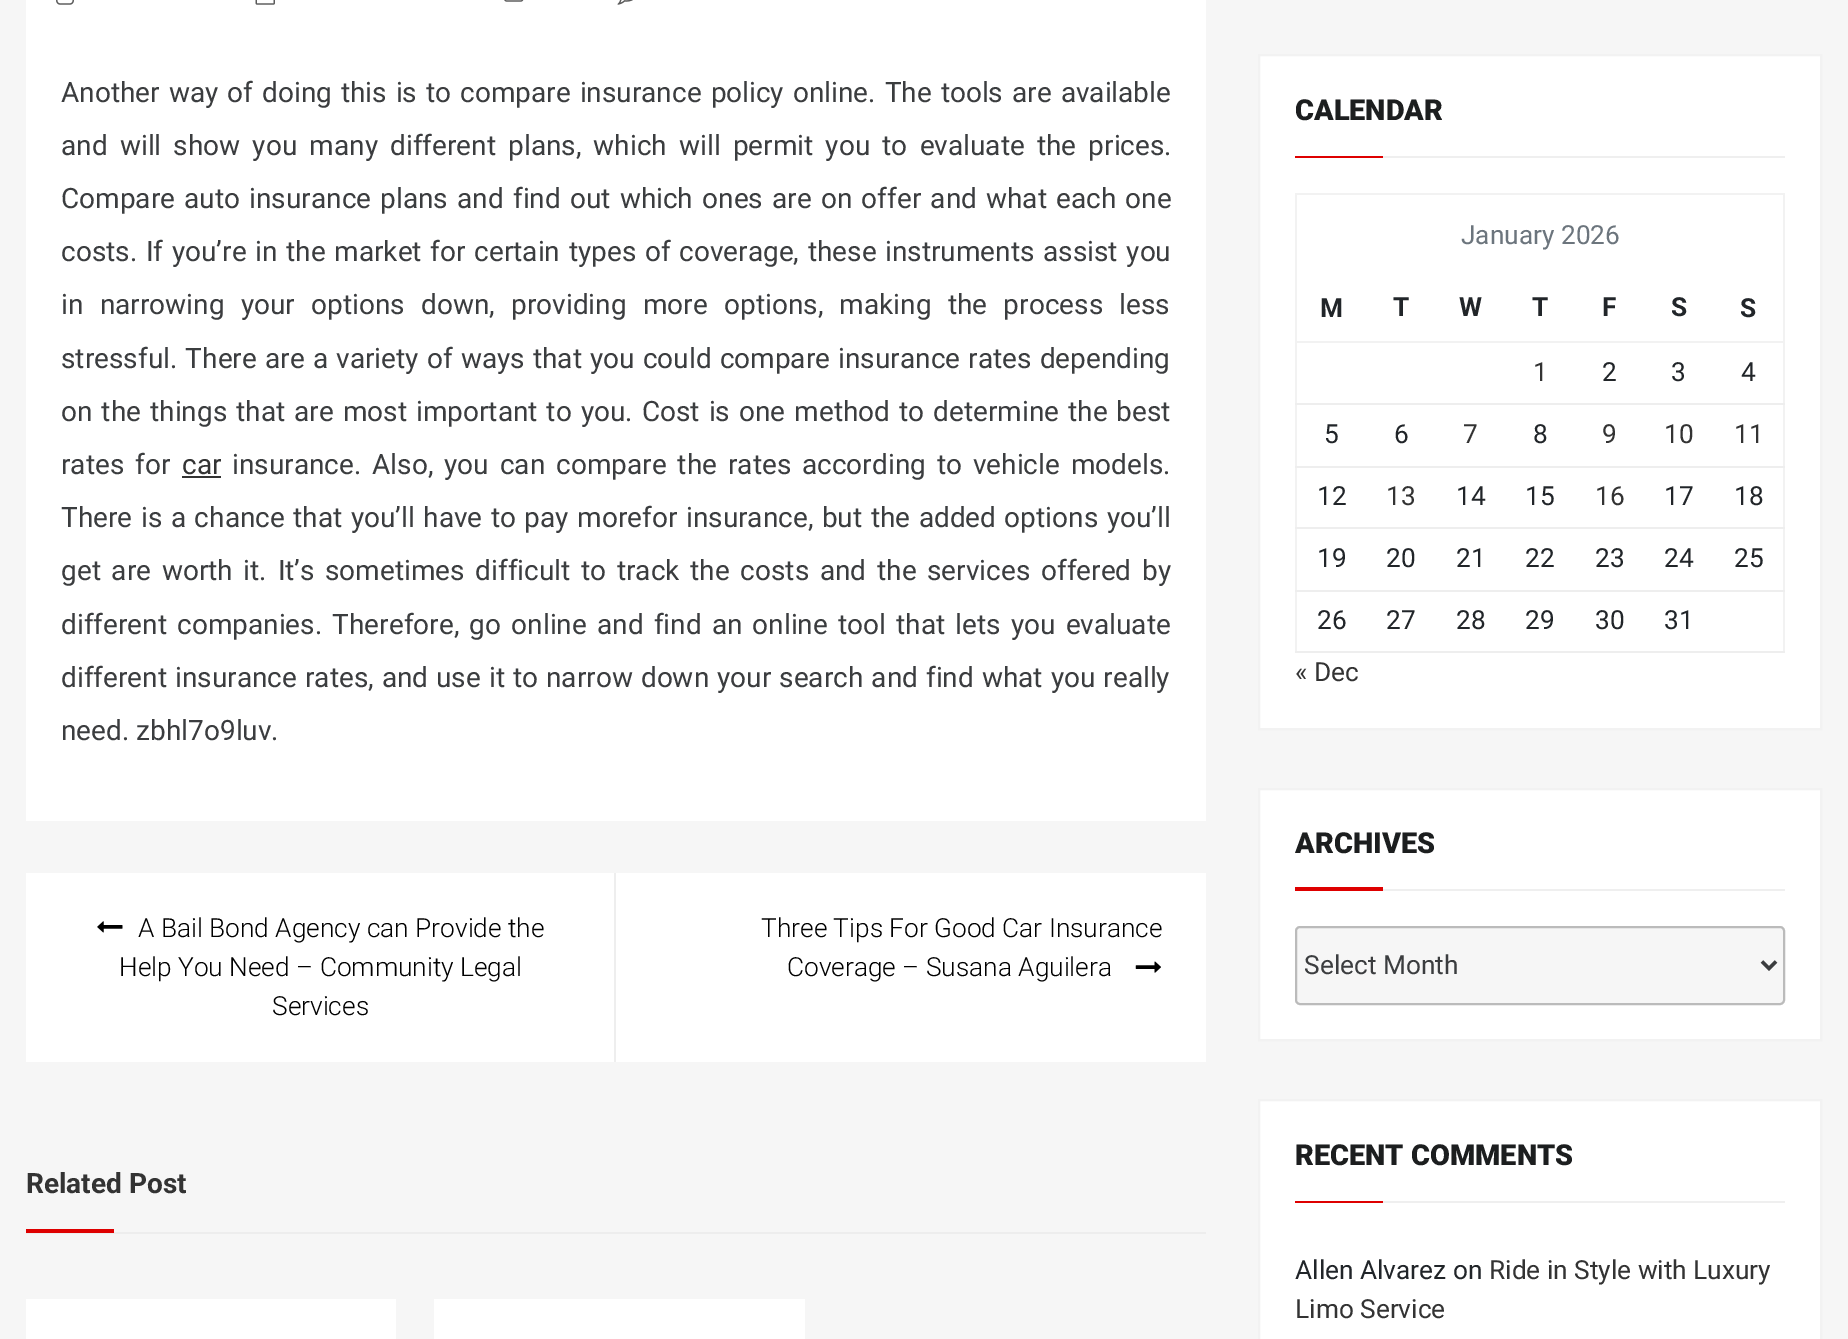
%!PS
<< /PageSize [1848 1339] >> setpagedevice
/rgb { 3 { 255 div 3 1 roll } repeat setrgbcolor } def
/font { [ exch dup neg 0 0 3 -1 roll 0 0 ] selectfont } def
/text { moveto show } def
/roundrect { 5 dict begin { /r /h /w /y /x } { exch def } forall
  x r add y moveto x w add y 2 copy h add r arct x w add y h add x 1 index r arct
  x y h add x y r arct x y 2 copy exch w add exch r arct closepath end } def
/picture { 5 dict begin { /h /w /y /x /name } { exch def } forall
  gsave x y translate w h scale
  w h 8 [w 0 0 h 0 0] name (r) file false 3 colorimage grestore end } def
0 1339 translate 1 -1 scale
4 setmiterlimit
246 246 246 rgb
0 0 1848 1339 rectfill
255 255 255 rgb
26 0 1180 821 rectfill
(img_01.rgb) 56 0 18 5 picture
(img_02.rgb) 255 0 20 5 picture
(img_03.rgb) 504 0 20 2 picture
(img_04.rgb) 617 0 16 5 picture
51 51 51 rgb
182 476 39 2 rectfill
255 255 255 rgb
26 873 1180 189 rectfill
238 238 238 rgb
614 873 2 189 rectfill
(img_05.rgb) 97 921 26 12 picture
(img_06.rgb) 1135 961 26 12 picture
237 237 237 rgb
26 1232 1180 2 rectfill
222 0 0 rgb
26 1229 88 4 rectfill
255 255 255 rgb
26 1299 370 40 rectfill
434 1299 371 40 rectfill
1259 55 moveto 562 0 rlineto 0 674 rlineto -562 0 rlineto closepath gsave fill grestore
242 242 242 rgb
2 setlinewidth
stroke
222 0 0 rgb
1295 156 88 2 rectfill
239 239 239 rgb
1383 156 402 2 rectfill
242 242 242 rgb
1295 193 490 2 rectfill
1783 193 2 460 rectfill
1295 193 2 460 rectfill
1295 341 490 2 rectfill
238 238 238 rgb
1295 403 490 2 rectfill
1295 466 490 2 rectfill
1295 527 490 2 rectfill
1295 590 490 2 rectfill
1295 651 490 2 rectfill
255 255 255 rgb
1259 789 moveto 562 0 rlineto 0 251 rlineto -562 0 rlineto closepath gsave fill grestore
242 242 242 rgb
stroke
222 0 0 rgb
1295 887 88 4 rectfill
239 239 239 rgb
1383 889 402 2 rectfill
246 246 246 rgb
1296 927 488 77 4 roundrect gsave fill grestore
187 187 187 rgb
stroke
59 61 63 rgb
3.5 setlinewidth
1762 961.5 moveto 7 7 rlineto 7 -7 rlineto stroke
255 255 255 rgb
1259 1100 moveto 562 0 rlineto 0 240 rlineto -562 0 rlineto closepath gsave fill grestore
242 242 242 rgb
2 setlinewidth
stroke
222 0 0 rgb
1295 1201 88 2 rectfill
239 239 239 rgb
1383 1201 402 2 rectfill
/Roboto-Regular 28 font
59 61 63 rgb
61 102 moveto 2.1 0 32 (Another way of doing this is to compare insurance policy online. The tools are available) widthshow
61 155 moveto 5.25 0 32 (and will show you many different plans, which will permit you to evaluate the prices.) widthshow
61 208 moveto 2.25 0 32 (Compare auto insurance plans and find out which ones are on offer and what each one) widthshow
61 261 moveto 1.75 0 32 (costs. If you’re in the market for certain types of coverage, these instruments assist you) widthshow
61 314 moveto 9.4 0 32 (in narrowing your options down, providing more options, making the process less) widthshow
61 368 moveto 1.25 0 32 (stressful. There are a variety of ways that you could compare insurance rates depending) widthshow
61 421 moveto 2.1 0 32 (on the things that are most important to you. Cost is one method to determine the best) widthshow
61 474 moveto 4 0 32 (rates for) widthshow
51 51 51 rgb
(car) 182 474 text
59 61 63 rgb
232 474 moveto 4 0 32 (insurance. Also, you can compare the rates according to vehicle models.) widthshow
61 527 moveto 1.6 0 32 (There is a chance that you’ll have to pay morefor insurance, but the added options you’ll) widthshow
61 580 moveto 3.75 0 32 (get are worth it. It’s sometimes difficult to track the costs and the services offered by) widthshow
61 634 moveto 3.25 0 32 (different companies. Therefore, go online and find an online tool that lets you evaluate) widthshow
61 687 moveto 1.1 0 32 (different insurance rates, and use it to narrow down your search and find what you really) widthshow
(need. zbhl7o9luv.) 61 740 text
/Roboto-Light 26.25 font
0 0 0 rgb
(A Bail Bond Agency can Provide the) 138 937 text
(Help You Need – Community Legal) 119 976 text
(Services) 272 1015 text
(Three Tips For Good Car Insurance) 761 937 text
(Coverage – Susana Aguilera) 787 976 text
/Roboto-Bold 28 font
51 51 51 rgb
(Related Post) 26 1193 text
/Roboto-Black 28.9 font
28 30 31 rgb
(CALENDAR) 1295 120 text
/Roboto-Regular 26.25 font
108 117 125 rgb
(January 2026) 1461 244 text
/Roboto-Bold 26.25 font
33 37 41 rgb
(M) 1320 317 text
(T) 1393 316 text
(W) 1459 316 text
(T) 1532 316 text
(F) 1602 316 text
(S) 1671 316 text
(S) 1740 317 text
/Roboto-Regular 26.25 font
51 51 51 rgb
(1) 1533 381 text
33 37 41 rgb
(2) 1602 381 text
(3) 1671 381 text
(4) 1741 381 text
(5) 1324 443 text
(6) 1394 443 text
51 51 51 rgb
(7) 1463 443 text
33 37 41 rgb
(8) 1533 443 text
51 51 51 rgb
(9) 1602 443 text
(10) 1664 443 text
(11) 1734 443 text
33 37 41 rgb
(12) 1317 505 text
51 51 51 rgb
(13) 1386 505 text
33 37 41 rgb
(14) 1456 505 text
(15) 1525 505 text
51 51 51 rgb
(16) 1595 505 text
33 37 41 rgb
(17) 1664 505 text
(18) 1734 505 text
(19) 1317 567 text
(20) 1386 567 text
(21) 1456 567 text
(22) 1525 567 text
(23) 1595 567 text
(24) 1664 567 text
(25) 1734 567 text
(26) 1317 629 text
(27) 1386 629 text
(28) 1456 629 text
(29) 1525 629 text
(30) 1595 629 text
(31) 1664 629 text
51 51 51 rgb
(« Dec) 1295 681 text
/Roboto-Black 28.9 font
28 30 31 rgb
(ARCHIVES) 1295 853 text
/Roboto-Regular 26.25 font
59 61 63 rgb
(Select Month) 1304 974 text
/Roboto-Black 28.9 font
28 30 31 rgb
(RECENT COMMENTS) 1295 1165 text
/Roboto-Regular 26.25 font
33 37 41 rgb
(Allen Alvarez on) 1295 1279 text
51 51 51 rgb
(Ride in Style with Luxury) 1489 1279 text
(Limo Service) 1295 1318 text
showpage
